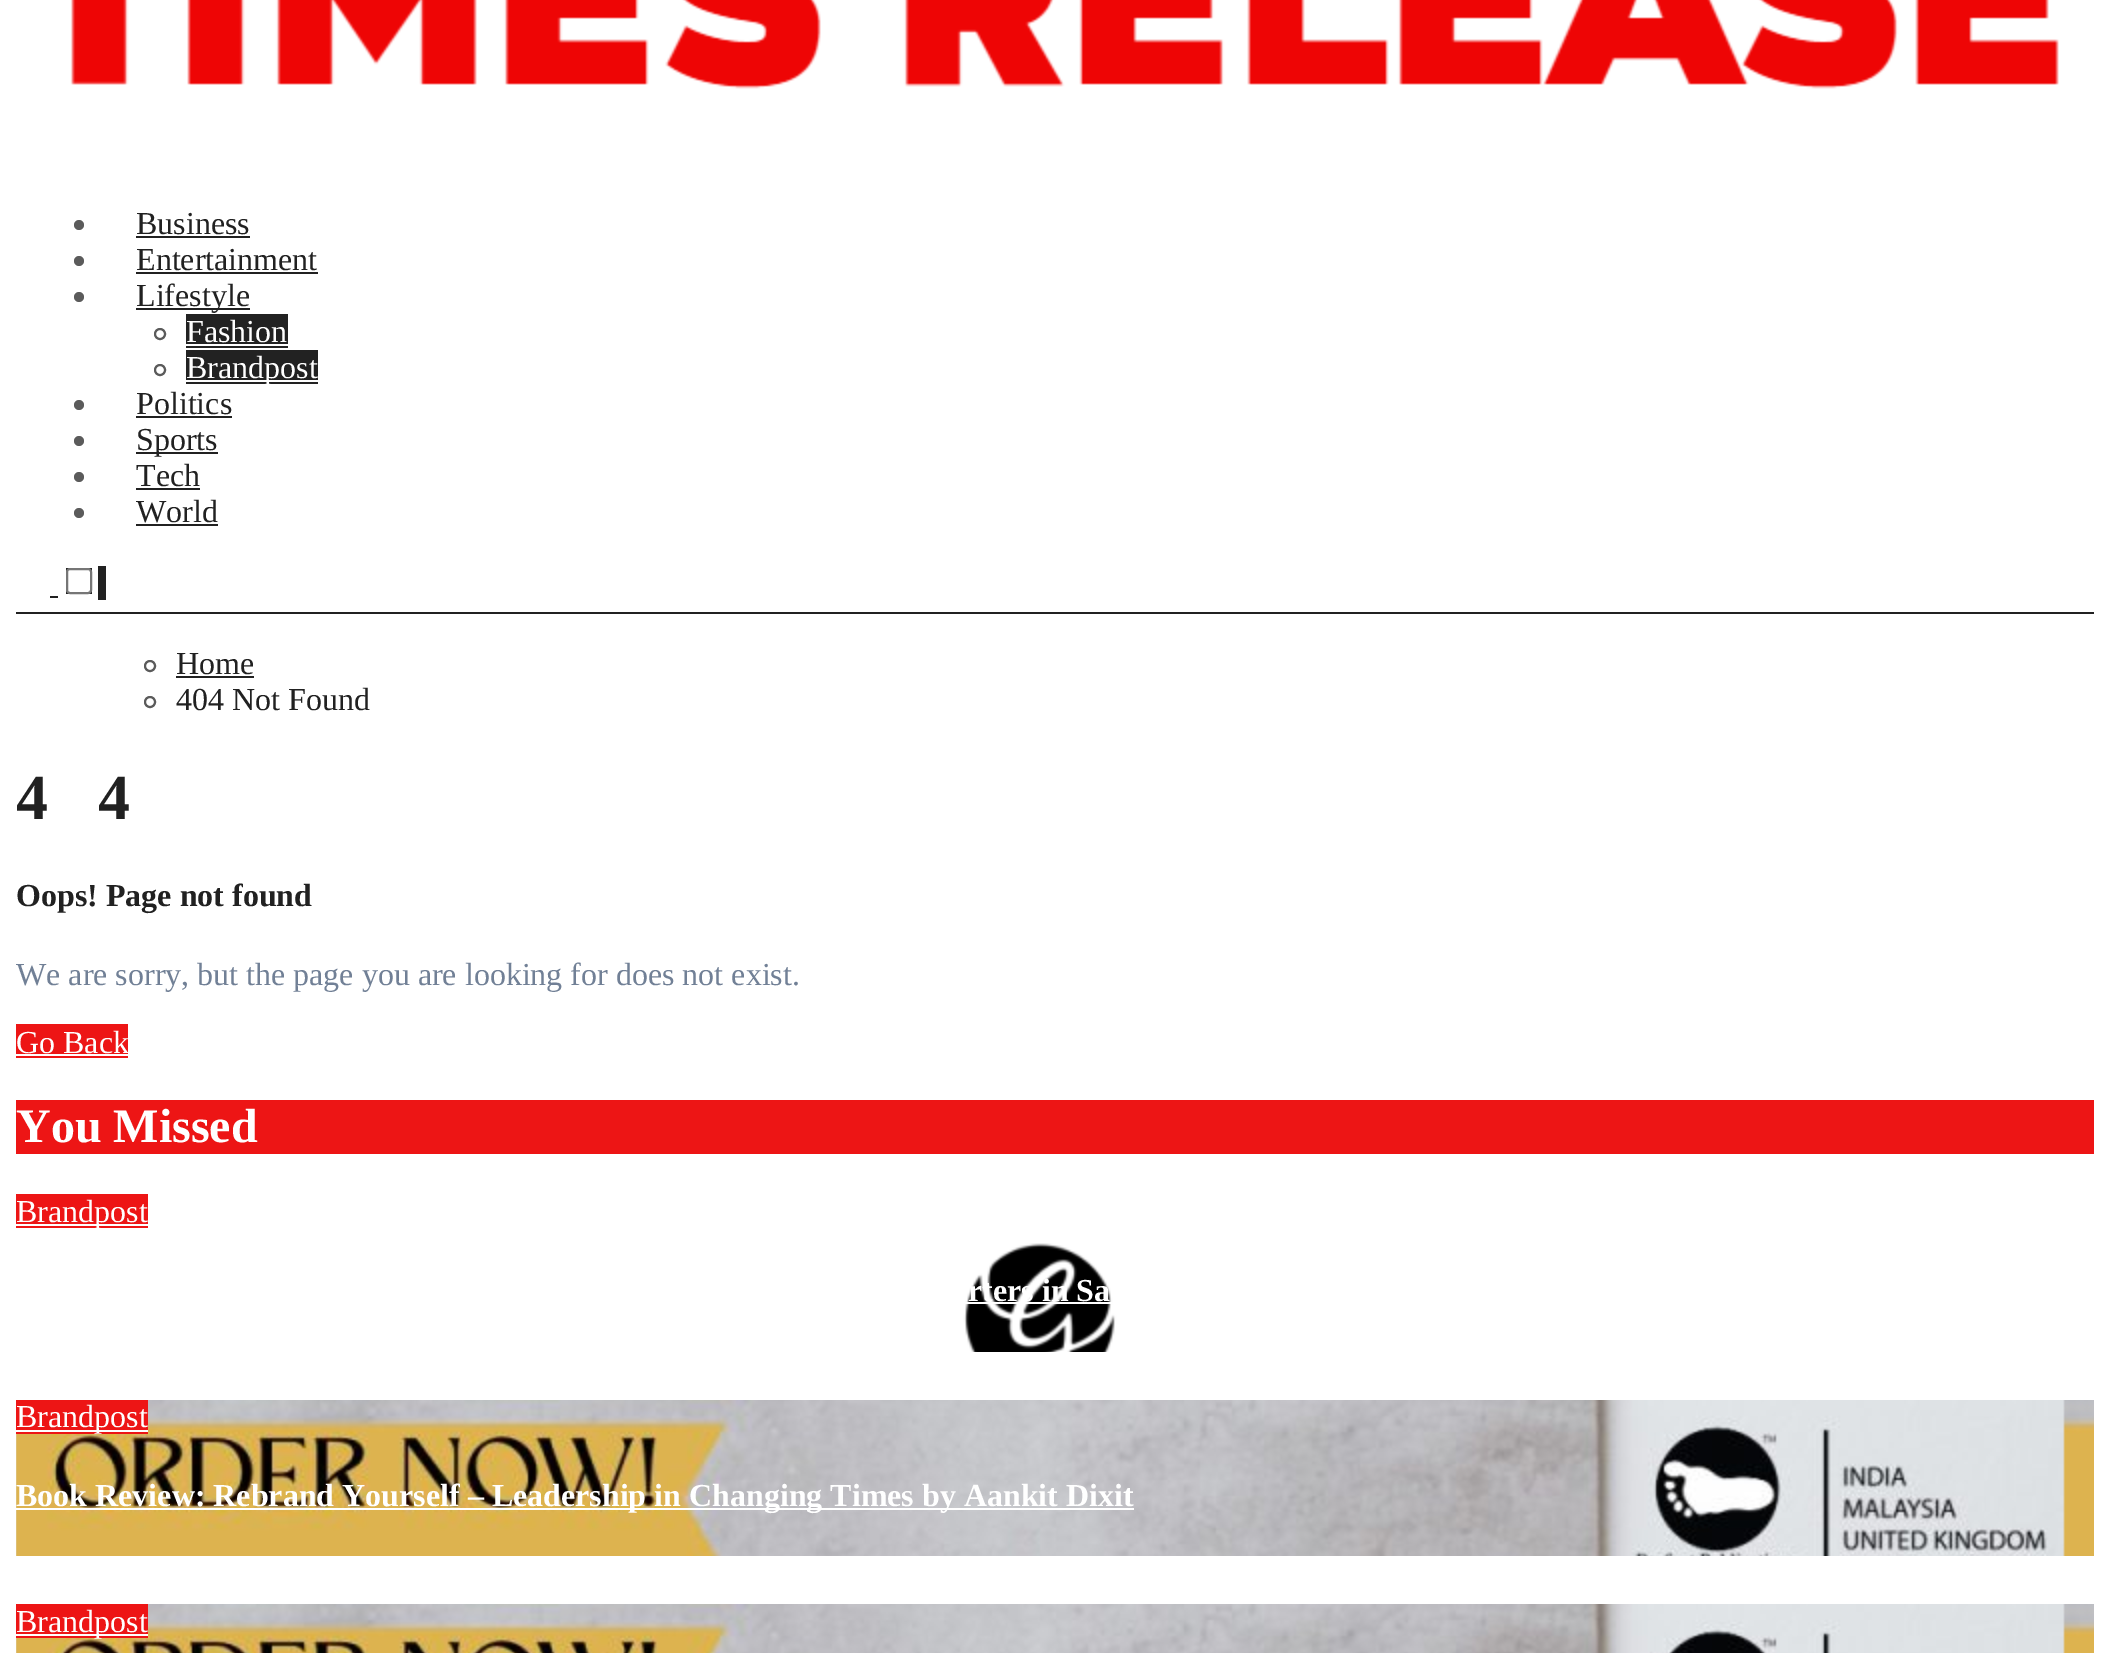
%!PS
<< /PageSize [2109 1653] >> setpagedevice
/rgb { 3 { 255 div 3 1 roll } repeat setrgbcolor } def
/font { [ exch dup neg 0 0 3 -1 roll 0 0 ] selectfont } def
/text { moveto show } def
/circle { newpath 0 360 arc closepath } def
/roundrect { 5 dict begin { /r /h /w /y /x } { exch def } forall
  x r add y moveto x w add y 2 copy h add r arct x w add y h add x 1 index r arct
  x y h add x y r arct x y 2 copy exch w add exch r arct closepath end } def
/picture { 5 dict begin { /h /w /y /x /name } { exch def } forall
  gsave x y translate w h scale
  w h 8 [w 0 0 h 0 0] name (r) file false 3 colorimage grestore end } def
0 1653 translate 1 -1 scale
4 setmiterlimit
255 255 255 rgb
0 0 2109 1653 rectfill
33 33 33 rgb
16 612 2078 2 rectfill
(img_01.rgb) 70 0 1989 89 picture
91 91 91 rgb
79 225 5 circle fill
33 33 33 rgb
136 236 114 2 rectfill
91 91 91 rgb
79 261 5 circle fill
33 33 33 rgb
136 272 182 2 rectfill
91 91 91 rgb
79 297 5 circle fill
33 33 33 rgb
136 308 114 2 rectfill
91 91 91 rgb
2 setlinewidth
160 334 5 circle stroke
34 34 34 rgb
186 314 102 34 rectfill
255 255 255 rgb
186 344 102 2 rectfill
91 91 91 rgb
160 370 5 circle stroke
34 34 34 rgb
186 350 132 34 rectfill
255 255 255 rgb
186 380 132 2 rectfill
91 91 91 rgb
79 405 5 circle fill
33 33 33 rgb
136 416 96 2 rectfill
91 91 91 rgb
79 441 5 circle fill
33 33 33 rgb
136 452 82 2 rectfill
91 91 91 rgb
79 477 5 circle fill
33 33 33 rgb
136 488 64 2 rectfill
91 91 91 rgb
79 513 5 circle fill
33 33 33 rgb
136 524 82 2 rectfill
50 596 8 2 rectfill
66 568 26 26 rectfill
98 566 8 34 rectfill
255 255 255 rgb
67 569 24 24 3 roundrect gsave fill grestore
118 118 118 rgb
stroke
91 91 91 rgb
150 666 5 circle stroke
33 33 33 rgb
176 676 78 2 rectfill
91 91 91 rgb
150 702 5 circle stroke
237 21 21 rgb
16 1024 112 34 rectfill
255 255 255 rgb
16 1054 112 2 rectfill
237 21 21 rgb
16 1100 2078 54 rectfill
(img_02.rgb) 16 1194 2078 158 picture
16 1194 132 34 rectfill
255 255 255 rgb
16 1224 132 2 rectfill
965 1302 147 2 rectfill
(img_03.rgb) 16 1400 2078 156 picture
237 21 21 rgb
16 1400 132 34 rectfill
255 255 255 rgb
16 1430 132 2 rectfill
16 1508 1118 2 rectfill
(img_04.rgb) 16 1604 2078 49 picture
237 21 21 rgb
16 1604 132 34 rectfill
255 255 255 rgb
16 1634 132 2 rectfill
/LiberationSerif-Regular 32 font
33 33 33 rgb
(Business) 136 234 text
(Entertainment) 136 270 text
(Lifestyle) 136 306 text
255 255 255 rgb
(Fashion) 186 342 text
(Brandpost) 186 378 text
33 33 33 rgb
(Politics) 136 414 text
(Sports) 136 450 text
(Tech) 136 486 text
(World) 136 522 text
(Home) 176 674 text
(404 Not Found) 176 710 text
/LiberationSerif-Bold 64 font
(4) 16 819 text
(4) 98 819 text
/LiberationSerif-Bold 32 font
(Oops! Page not found) 16 906 text
/LiberationSerif-Regular 32 font
113 128 150 rgb
(We are sorry, but the page you are looking for does not exist.) 16 985 text
255 255 255 rgb
(Go Back) 16 1053 text
/LiberationSerif-Bold 48 font
(You Missed) 16 1142 text
/LiberationSerif-Regular 32 font
(Brandpost) 16 1222 text
/LiberationSerif-Bold 32 font
(rters in Sa) 968 1301 text
/LiberationSerif-Regular 32 font
(Brandpost) 16 1427 text
/LiberationSerif-Bold 32 font
(Book Review: Rebrand Yourself – Leadership in Changing Times by Aankit Dixit) 16 1506 text
/LiberationSerif-Regular 32 font
(Brandpost) 16 1632 text
showpage
